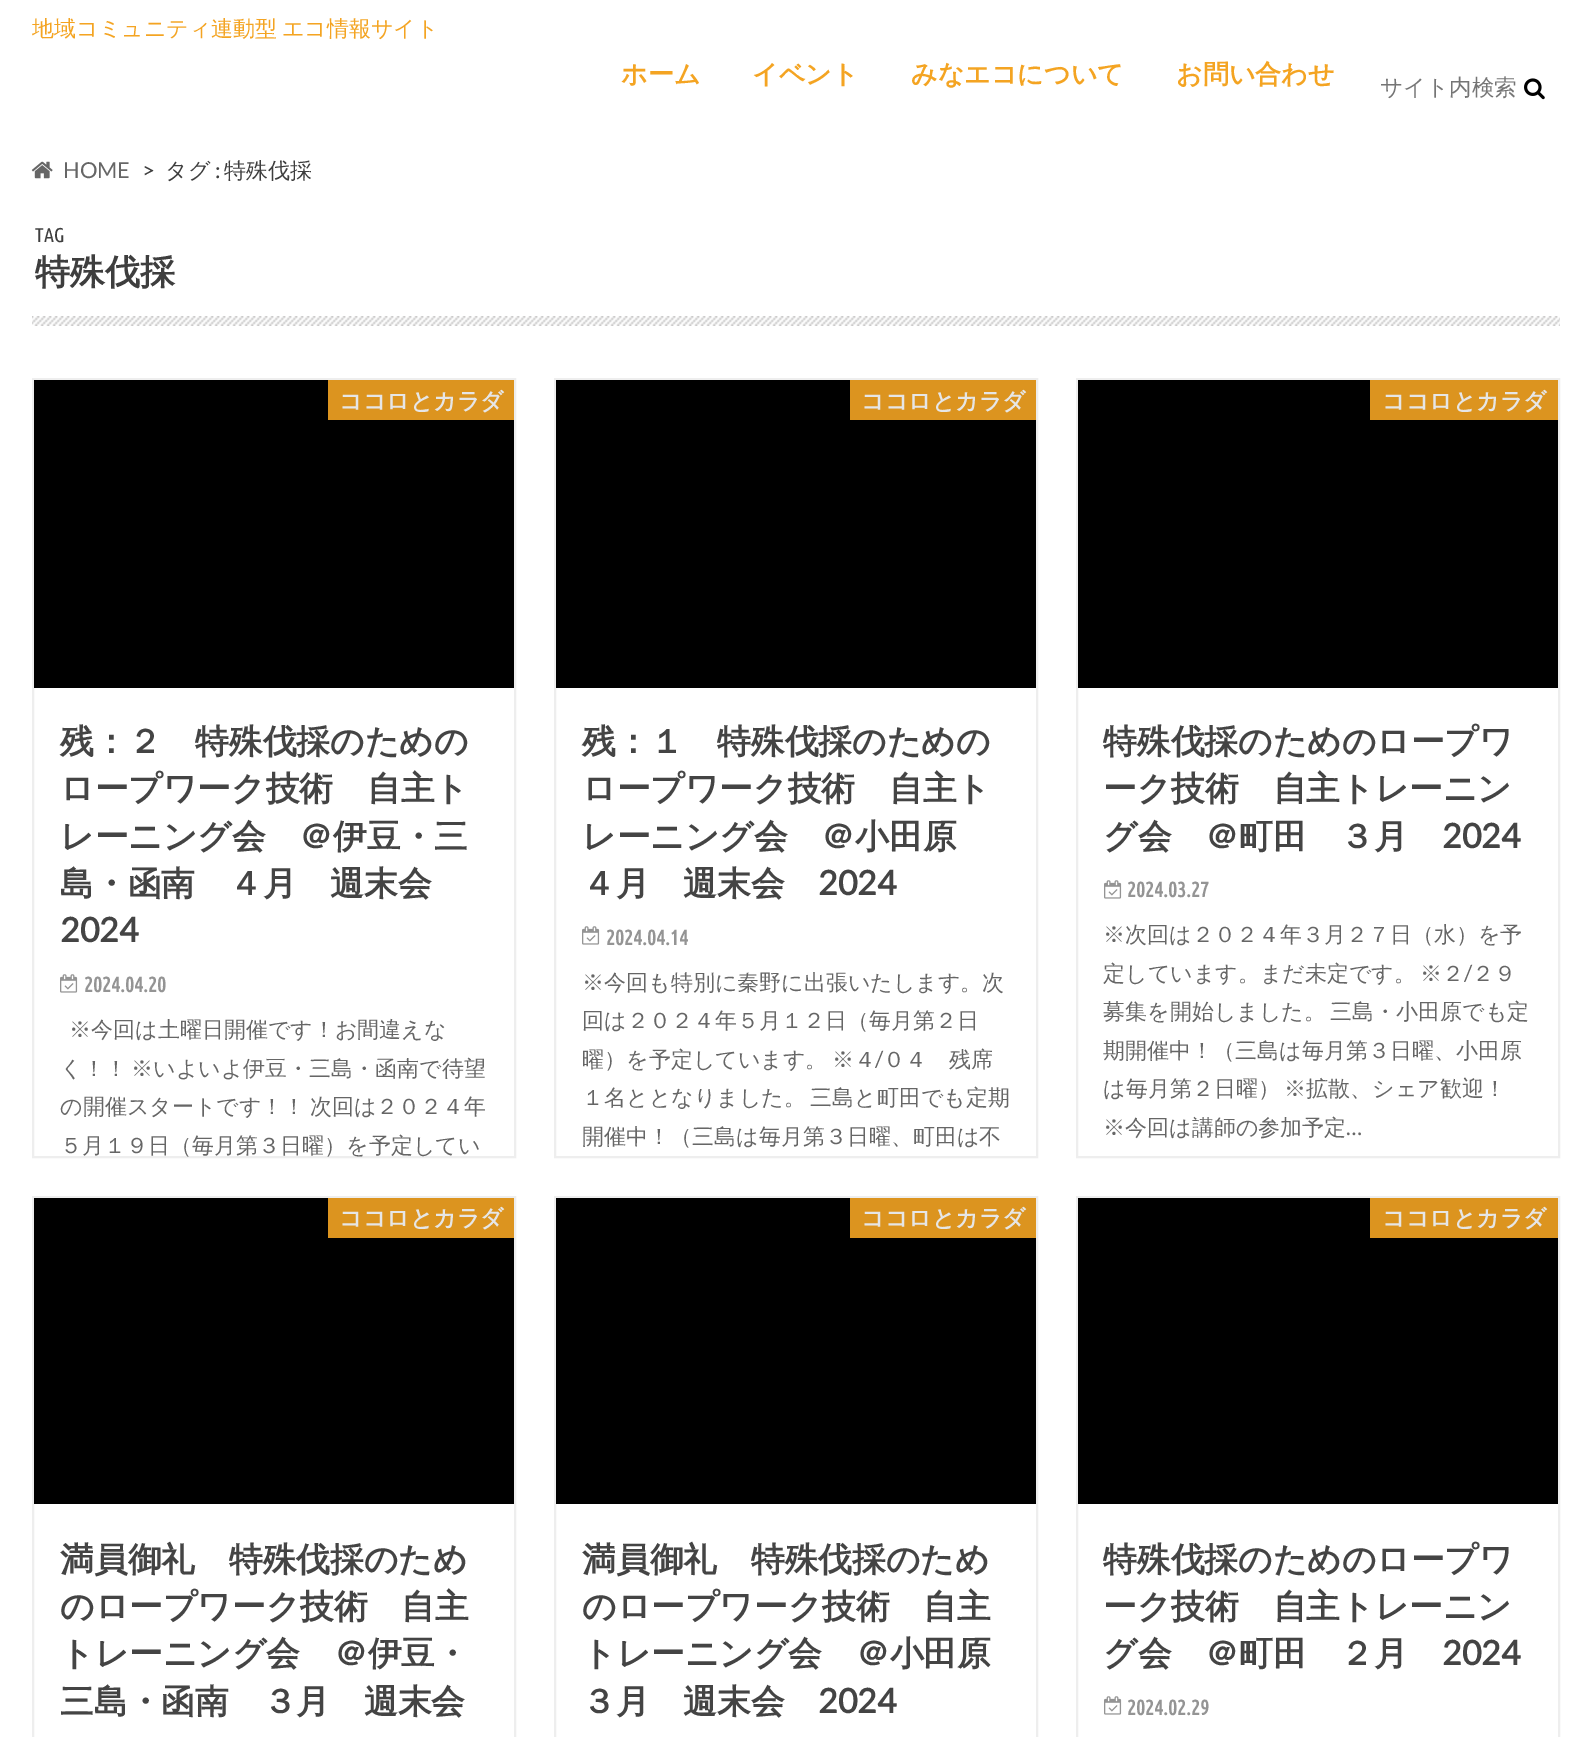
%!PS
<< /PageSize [1591 1737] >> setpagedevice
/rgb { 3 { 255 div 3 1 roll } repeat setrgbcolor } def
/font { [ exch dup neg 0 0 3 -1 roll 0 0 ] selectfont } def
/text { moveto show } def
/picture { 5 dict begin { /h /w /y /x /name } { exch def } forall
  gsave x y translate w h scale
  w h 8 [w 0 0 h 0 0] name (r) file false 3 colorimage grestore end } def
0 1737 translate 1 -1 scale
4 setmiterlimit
255 255 255 rgb
0 0 1591 1737 rectfill
(img_01.rgb) 1524 78 21 22 picture
(img_02.rgb) 31 161 22 18 picture
(img_03.rgb) 32 316 1528 10 picture
238 238 238 rgb
2 setlinewidth
33 379 482 778 rectstroke
0 0 0 rgb
34 380 480 308 rectfill
220 148 31 rgb
328 380 186 40 rectfill
(img_04.rgb) 60 974 18 19 picture
238 238 238 rgb
555 379 482 778 rectstroke
0 0 0 rgb
556 380 480 308 rectfill
220 148 31 rgb
850 380 186 40 rectfill
(img_04.rgb) 582 926 18 19 picture
238 238 238 rgb
1077 379 482 778 rectstroke
0 0 0 rgb
1078 380 480 308 rectfill
220 148 31 rgb
1370 380 188 40 rectfill
(img_04.rgb) 1104 880 18 19 picture
238 238 238 rgb
33 1197 482 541 rectstroke
0 0 0 rgb
34 1198 480 306 rectfill
220 148 31 rgb
328 1198 186 40 rectfill
238 238 238 rgb
555 1197 482 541 rectstroke
0 0 0 rgb
556 1198 480 306 rectfill
220 148 31 rgb
850 1198 186 40 rectfill
238 238 238 rgb
1077 1197 482 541 rectstroke
0 0 0 rgb
1078 1198 480 306 rectfill
220 148 31 rgb
1370 1198 188 40 rectfill
(img_04.rgb) 1104 1696 18 19 picture
/WenQuanYiZenHei-Medium 22 font
244 164 34 rgb
32 36 moveto -2 0 32 (地域コミュニティ連動型 エコ情報サイト) widthshow
/WenQuanYiZenHei-Bold 26 font
(ホーム) 621 83 text
(イベント) 752 83 text
(みなエコについて) 911 83 text
(お問い合わせ) 1176 83 text
/WenQuanYiZenHei-Medium 22.5 font
117 117 117 rgb
(サイト内検索) 1380 95 text
/Lato-Regular 22 font
102 102 102 rgb
(HOME) 63 178 text
62 62 62 rgb
(>) 142 178 text
/WenQuanYiZenHei-Medium 22 font
(タグ) 165 178 text
/Lato-Regular 22 font
(:) 215 178 text
/WenQuanYiZenHei-Medium 22 font
(特殊伐採) 224 178 text
/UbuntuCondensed-Regular 20 font
(TAG) 35 242 text
/WenQuanYiZenHei-Bold 35 font
(特殊伐採) 35 284 text
/WenQuanYiZenHei-Bold 23 font
230 230 230 rgb
(ココロとカラダ) 339 409 text
/WenQuanYiZenHei-Bold 33.75 font
68 68 68 rgb
(残：２　特殊伐採のための) 60 753 text
(ロープワーク技術　自主ト) 60 800 text
(レーニング会　＠伊豆・三) 60 848 text
(島・函南　４月　週末会) 60 895 text
/Lato-Bold 33.75 font
(2024) 60 942 text
/UbuntuCondensed-Bold 21 font
148 148 148 rgb
(2024.04.20) 84 992 text
/WenQuanYiZenHei-Medium 22 font
102 102 102 rgb
(※今回は土曜日開催です！お間違えな) 69 1037 text
60 1076 moveto -2 0 32 (く！！ ※いよいよ伊豆・三島・函南で待望) widthshow
60 1114 moveto -2 0 32 (の開催スタートです！！ 次回は２０２４年) widthshow
(５月１９日（毎月第３日曜）を予定してい) 60 1153 text
/WenQuanYiZenHei-Bold 23 font
230 230 230 rgb
(ココロとカラダ) 861 409 text
/WenQuanYiZenHei-Bold 33.75 font
68 68 68 rgb
(残：１　特殊伐採のための) 582 753 text
(ロープワーク技術　自主ト) 582 800 text
(レーニング会　＠小田原) 582 848 text
(４月　週末会) 582 895 text
/Lato-Bold 33.75 font
(2024) 818 895 text
/UbuntuCondensed-Bold 21 font
148 148 148 rgb
(2024.04.14) 606 945 text
/WenQuanYiZenHei-Medium 22 font
102 102 102 rgb
(※今回も特別に秦野に出張いたします。次) 582 990 text
(回は２０２４年５月１２日（毎月第２日) 582 1028 text
582 1067 moveto -2 0 32 (曜）を予定しています。 ※４) widthshow
/Lato-Regular 22 font
(/) 875 1067 text
/WenQuanYiZenHei-Medium 22 font
(０４　残席) 883 1067 text
582 1105 moveto -2 0 32 (１名ととなりました。 三島と町田でも定期) widthshow
(開催中！（三島は毎月第３日曜、町田は不) 582 1144 text
/WenQuanYiZenHei-Bold 23 font
230 230 230 rgb
(ココロとカラダ) 1382 409 text
/WenQuanYiZenHei-Bold 33.75 font
68 68 68 rgb
(特殊伐採のためのロープワ) 1103 753 text
(ーク技術　自主トレーニン) 1103 800 text
(グ会　＠町田　３月) 1103 848 text
/Lato-Bold 33.75 font
(2024) 1442 848 text
/UbuntuCondensed-Bold 21 font
148 148 148 rgb
(2024.03.27) 1127 897 text
/WenQuanYiZenHei-Medium 22 font
102 102 102 rgb
(※次回は２０２４年３月２７日（水）を予) 1103 942 text
1103 981 moveto -2 0 32 (定しています。まだ未定です。 ※２) widthshow
/Lato-Regular 22 font
(/) 1464 981 text
/WenQuanYiZenHei-Medium 22 font
(２９) 1472 981 text
1103 1019 moveto -2 0 32 (募集を開始しました。 三島・小田原でも定) widthshow
(期開催中！（三島は毎月第３日曜、小田原) 1103 1058 text
1103 1096 moveto -2 0 32 (は毎月第２日曜） ※拡散、シェア歓迎！) widthshow
(※今回は講師の参加予定) 1103 1135 text
/Lato-Regular 22 font
(…) 1346 1135 text
/WenQuanYiZenHei-Bold 23 font
230 230 230 rgb
(ココロとカラダ) 339 1226 text
/WenQuanYiZenHei-Bold 33.75 font
68 68 68 rgb
(満員御礼　特殊伐採のため) 60 1571 text
(のロープワーク技術　自主) 60 1618 text
(トレーニング会　＠伊豆・) 60 1665 text
(三島・函南　３月　週末会) 60 1713 text
/WenQuanYiZenHei-Bold 23 font
230 230 230 rgb
(ココロとカラダ) 861 1226 text
/WenQuanYiZenHei-Bold 33.75 font
68 68 68 rgb
(満員御礼　特殊伐採のため) 582 1571 text
(のロープワーク技術　自主) 582 1618 text
(トレーニング会　＠小田原) 582 1665 text
(３月　週末会) 582 1713 text
/Lato-Bold 33.75 font
(2024) 818 1713 text
/WenQuanYiZenHei-Bold 23 font
230 230 230 rgb
(ココロとカラダ) 1382 1226 text
/WenQuanYiZenHei-Bold 33.75 font
68 68 68 rgb
(特殊伐採のためのロープワ) 1103 1571 text
(ーク技術　自主トレーニン) 1103 1618 text
(グ会　＠町田　２月) 1103 1665 text
/Lato-Bold 33.75 font
(2024) 1442 1665 text
/UbuntuCondensed-Bold 21 font
148 148 148 rgb
(2024.02.29) 1127 1715 text
showpage
